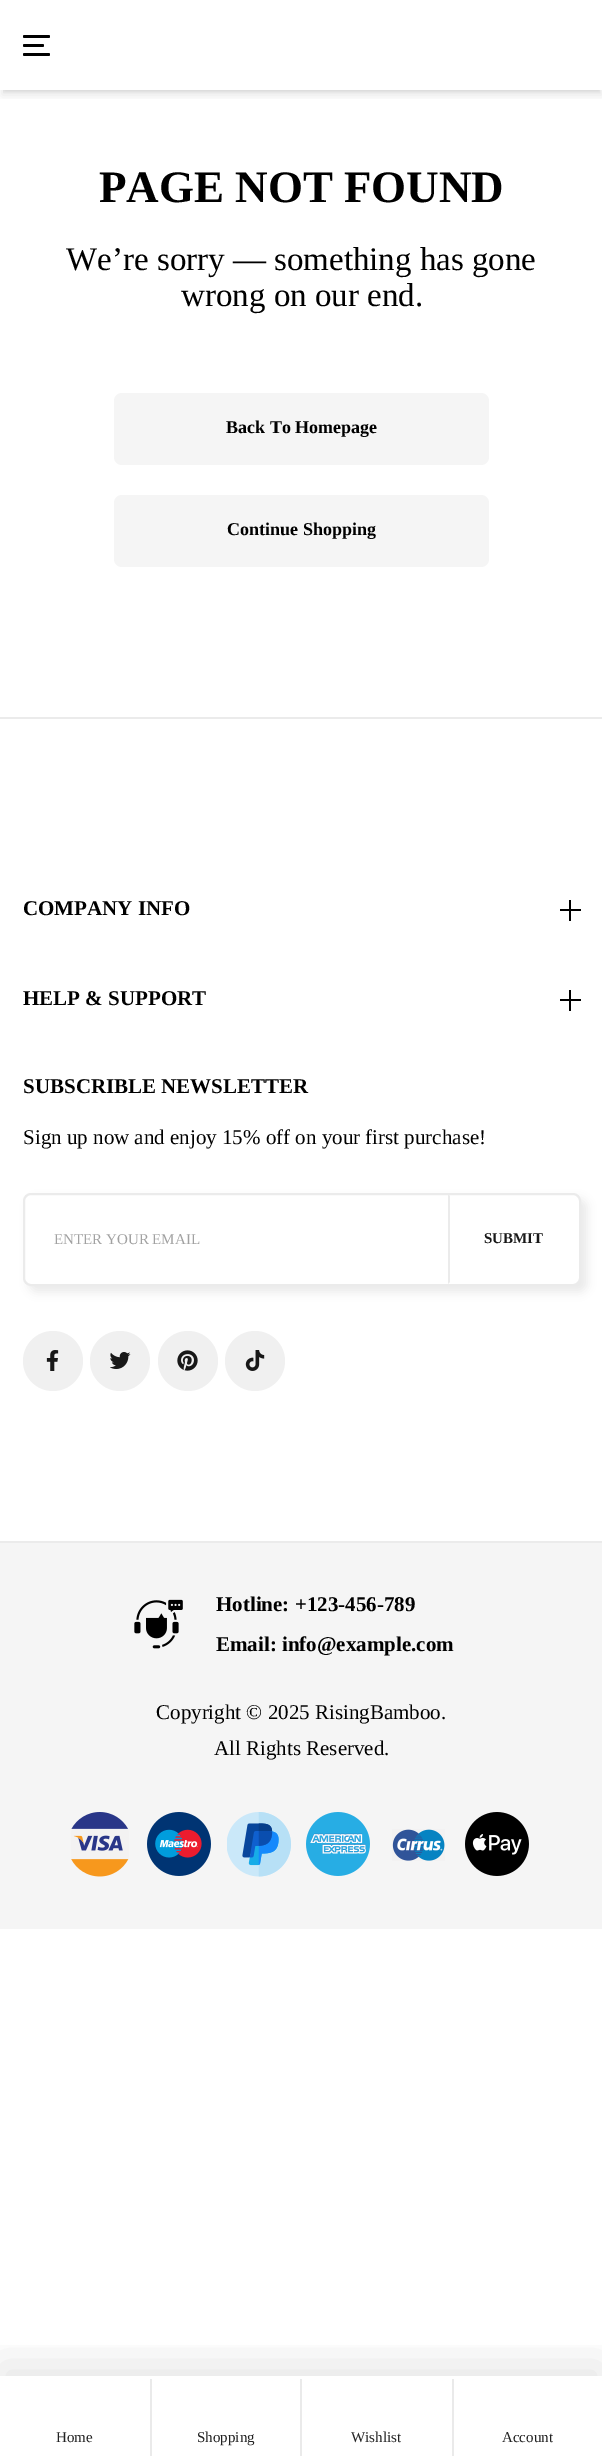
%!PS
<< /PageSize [602 2458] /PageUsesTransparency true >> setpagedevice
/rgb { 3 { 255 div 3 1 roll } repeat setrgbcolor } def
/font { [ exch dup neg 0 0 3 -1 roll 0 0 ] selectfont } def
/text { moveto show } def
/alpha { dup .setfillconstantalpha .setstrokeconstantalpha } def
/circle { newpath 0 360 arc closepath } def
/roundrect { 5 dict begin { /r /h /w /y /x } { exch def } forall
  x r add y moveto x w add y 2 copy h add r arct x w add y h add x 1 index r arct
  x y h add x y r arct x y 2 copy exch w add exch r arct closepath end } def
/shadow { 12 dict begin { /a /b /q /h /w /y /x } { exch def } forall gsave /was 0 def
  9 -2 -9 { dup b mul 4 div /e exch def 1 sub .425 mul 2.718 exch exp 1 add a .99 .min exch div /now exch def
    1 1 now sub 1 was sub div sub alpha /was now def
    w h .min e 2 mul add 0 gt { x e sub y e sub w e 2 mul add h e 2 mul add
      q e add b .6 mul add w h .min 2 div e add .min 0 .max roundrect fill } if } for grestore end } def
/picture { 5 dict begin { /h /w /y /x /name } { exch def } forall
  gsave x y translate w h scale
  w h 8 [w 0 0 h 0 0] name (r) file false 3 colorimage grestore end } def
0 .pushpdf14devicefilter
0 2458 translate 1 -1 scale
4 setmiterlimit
255 255 255 rgb
0 0 602 2458 rectfill
gsave
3 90 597 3 rectclip
0 0 0 rgb
3 6 597 84 0 3 0.1 shadow
grestore
gsave
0 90 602 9 rectclip
0 0 0 rgb
2 8 600 87 0 4.5 0.1 shadow
grestore
0 0 0 rgb
23 35 27 3 1.5 roundrect fill
23 44 21 3 1.5 roundrect fill
23 53 27 3 1.5 roundrect fill
245 245 245 rgb
114 393 375 72 8 roundrect fill
114 495 375 72 8 roundrect fill
235 235 235 rgb
0 717 602 2 rectfill
0 0 0 rgb
560 909 21 2 rectfill
569 900 2 21 rectfill
560 999 21 2 rectfill
569 990 2 21 rectfill
29 1199 558 93 8 4.5 0.08 shadow
255 255 255 rgb
24 1194 556 91 7 roundrect gsave fill grestore
235 235 235 rgb
2 setlinewidth
stroke
450 1196 moveto -2 -2 rlineto 0 90 rlineto 2 -2 rlineto closepath fill
240 240 240 rgb
53 1361 30 circle fill
(img_01.rgb) 46 1350 13 21 picture
120 1361 30 circle fill
(img_02.rgb) 110 1352 21 17 picture
188 1361 30 circle fill
(img_03.rgb) 177 1350 21 21 picture
255 1361 30 circle fill
(img_04.rgb) 245 1350 20 21 picture
245 245 245 rgb
0 1543 602 386 rectfill
235 235 235 rgb
0 1541 602 2 rectfill
(img_05.rgb) 134 1599 49 50 picture
(img_06.rgb) 71 1812 58 65 picture
(img_07.rgb) 147 1812 64 64 picture
(img_08.rgb) 227 1812 64 65 picture
(img_09.rgb) 306 1812 64 64 picture
(img_10.rgb) 392 1829 53 32 picture
(img_11.rgb) 465 1812 64 64 picture
gsave
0 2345 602 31 rectclip
0 0 0 rgb
0 2364 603 83 0 22 0.1 shadow
grestore
234 234 234 rgb
150 2379 2 77 rectfill
300 2379 2 77 rectfill
452 2379 2 77 rectfill
/LiberationSerif-Bold 45 font
0 0 0 rgb
(PAGE NOT FOUND) 99 202 text
/LiberationSerif-Regular 33 font
(We’re sorry — something has gone) 66 270 text
(wrong on our end.) 181 306 text
/LiberationSerif-Bold 18 font
(Back To Homepage) 226 433 text
(Continue Shopping) 227 535 text
/LiberationSerif-Bold 21 font
(COMPANY INFO) 23 915 text
(HELP & SUPPORT) 23 1005 text
(SUBSCRIBLE NEWSLETTER) 23 1093 text
/LiberationSerif-Regular 21 font
(Sign up now and enjoy 15% off on your first purchase!) 23 1144 text
/LiberationSerif-Regular 15 font
161 161 161 rgb
(ENTER YOUR EMAIL) 54 1244 text
/LiberationSerif-Bold 15 font
24 24 24 rgb
(SUBMIT) 484 1243 text
/LiberationSerif-Bold 21 font
0 0 0 rgb
(Hotline: +123-456-789) 216 1611 text
(Email: info@example.com) 216 1651 text
/LiberationSerif-Regular 21 font
(Copyright © 2025 RisingBamboo.) 156 1719 text
(All Rights Reserved.) 214 1755 text
/LiberationSerif-Regular 15 font
34 34 34 rgb
(Home) 56 2442 text
(Shopping) 197 2442 text
(Wishlist) 351 2442 text
(Account) 502 2442 text
.poppdf14devicefilter showpage
